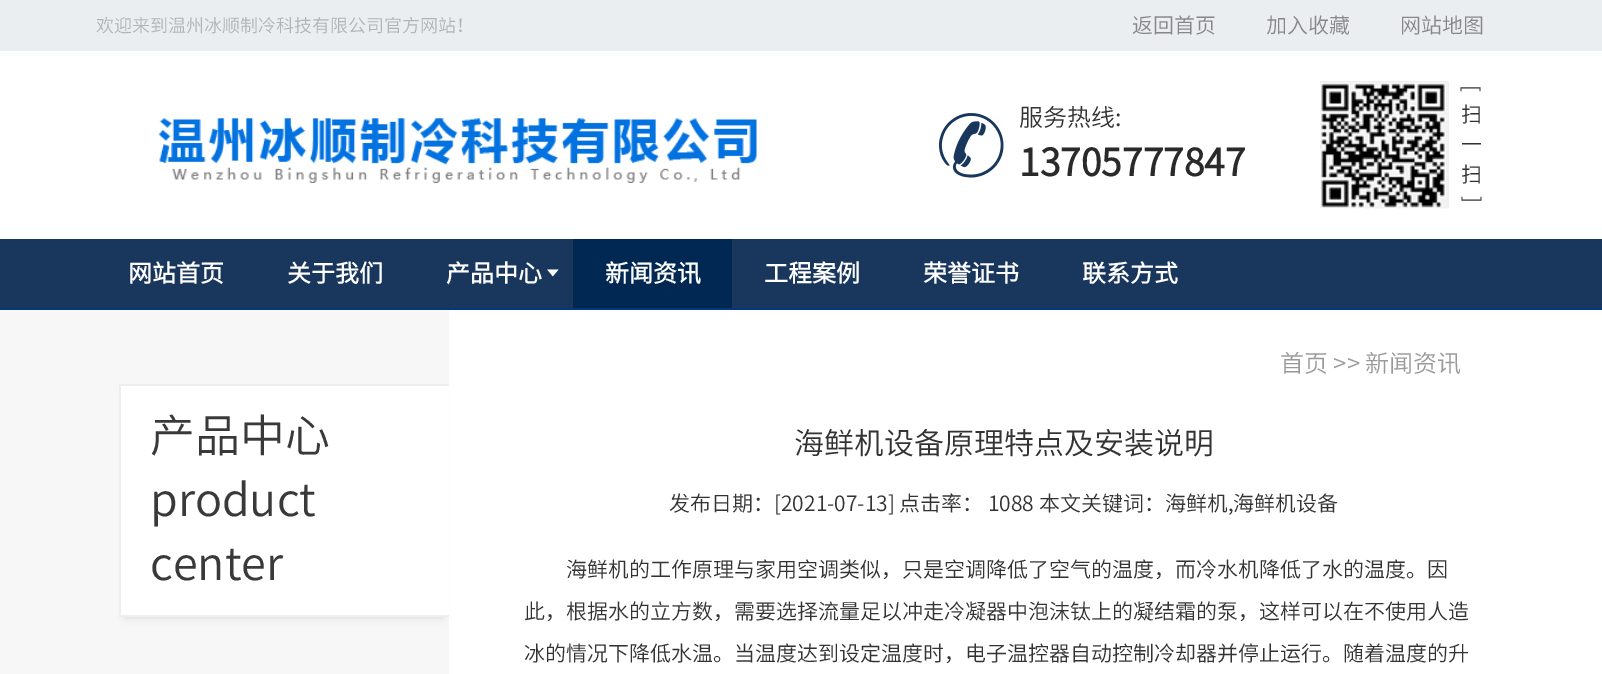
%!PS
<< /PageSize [1602 674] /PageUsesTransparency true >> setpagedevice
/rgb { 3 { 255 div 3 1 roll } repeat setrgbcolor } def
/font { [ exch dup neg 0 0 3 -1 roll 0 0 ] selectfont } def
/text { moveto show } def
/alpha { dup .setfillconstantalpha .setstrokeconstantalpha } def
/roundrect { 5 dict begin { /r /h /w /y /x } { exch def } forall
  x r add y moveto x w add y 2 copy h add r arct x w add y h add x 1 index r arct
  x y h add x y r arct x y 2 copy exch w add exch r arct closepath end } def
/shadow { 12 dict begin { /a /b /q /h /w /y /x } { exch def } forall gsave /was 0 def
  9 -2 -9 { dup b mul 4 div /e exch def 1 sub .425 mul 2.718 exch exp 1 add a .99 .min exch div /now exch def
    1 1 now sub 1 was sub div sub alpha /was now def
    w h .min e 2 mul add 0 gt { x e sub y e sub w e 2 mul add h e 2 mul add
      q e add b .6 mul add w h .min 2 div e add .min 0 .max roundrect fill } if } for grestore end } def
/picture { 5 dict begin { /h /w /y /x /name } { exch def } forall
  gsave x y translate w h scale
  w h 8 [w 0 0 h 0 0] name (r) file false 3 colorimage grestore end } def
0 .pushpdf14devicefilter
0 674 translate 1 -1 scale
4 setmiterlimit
255 255 255 rgb
0 0 1602 674 rectfill
234 238 241 rgb
0 0 1602 51 rectfill
(img_01.rgb) 158 118 599 65 picture
(img_02.rgb) 939 113 65 65 picture
(img_03.rgb) 1320 81 129 128 picture
25 55 93 rgb
0 239 1602 69 rectfill
4 55 125 rgb
0 308 1602 2 rectfill
(img_04.rgb) 547 269 12 8 picture
0 40 82 rgb
573 239 159 69 rectfill
247 247 247 rgb
0 310 449 364 rectfill
0 0 0 rgb
125 398 318 220 0 4 0.11 shadow
255 255 255 rgb
121 386 328 229 rectfill
238 238 238 rgb
119 384 330 2 rectfill
119 615 330 2 rectfill
119 384 2 233 rectfill
/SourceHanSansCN-Light 18 font
177 180 181 rgb
(欢迎来到温州冰顺制冷科技有限公司官方网站！) 96 32 text
/SourceHanSansCN-Light 21 font
135 135 135 rgb
(返回首页) 1132 33 text
(加入收藏) 1266 33 text
(网站地图) 1400 33 text
/SourceHanSansCN-Light 24 font
51 51 51 rgb
(服务热线:) 1019 126 text
/SourceHanSansCN-Bold 37.5 font
42 42 42 rgb
(13705777847) 1019 176 text
/SourceHanSansCN-Light 21 font
51 51 51 rgb
gsave 1464 85 translate 90 rotate 0 0 moveto ([) show grestore
(扫) 1461 122 text
(一) 1461 152 text
(扫) 1461 182 text
gsave 1465 196 translate 90 rotate 0 0 moveto (]) show grestore
/SourceHanSansCN-Bold 24 font
255 255 255 rgb
(网站首页) 128 282 text
(关于我们) 287 282 text
(产品中心) 446 282 text
(新闻资讯) 605 282 text
(工程案例) 764 282 text
(荣誉证书) 923 282 text
(联系方式) 1082 282 text
/SourceHanSansCN-Light 45 font
57 57 57 rgb
(产品中心) 150 452 text
(product) 150 516 text
(center) 150 580 text
/SourceHanSansCN-Light 24 font
153 153 153 rgb
(首页 >> 新闻资讯) 1280 372 text
/SourceHanSansCN-Light 30 font
51 51 51 rgb
(海鲜机设备原理特点及安装说明) 794 454 text
/SourceHanSansCN-Light 21 font
(发布日期：[2021-07-13] 点击率： 1088 本文关键词：海鲜机,海鲜机设备) 669 511 text
(海鲜机的工作原理与家用空调类似，只是空调降低了空气的温度，而冷水机降低了水的温度。因) 566 577 text
(此，根据水的立方数，需要选择流量足以冲走冷凝器中泡沫钛上的凝结霜的泵，这样可以在不使用人造) 524 619 text
(冰的情况下降低水温。当温度达到设定温度时，电子温控器自动控制冷却器并停止运行。随着温度的升) 524 661 text
.poppdf14devicefilter showpage
